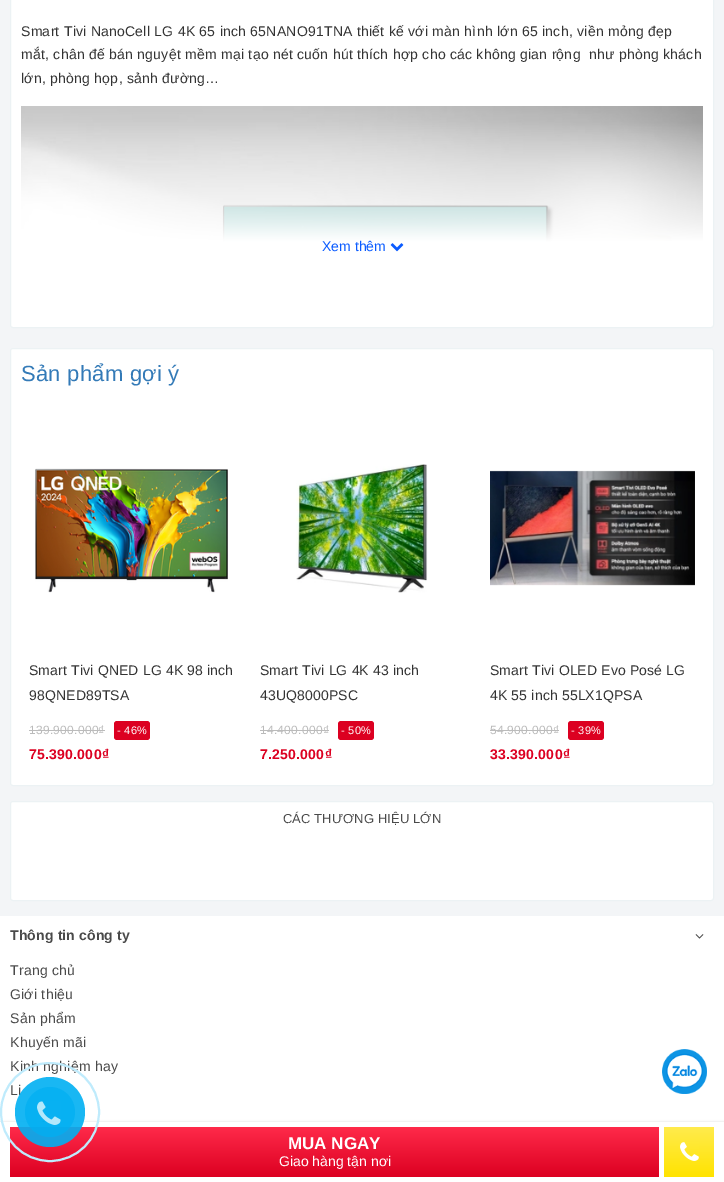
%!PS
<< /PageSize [724 1182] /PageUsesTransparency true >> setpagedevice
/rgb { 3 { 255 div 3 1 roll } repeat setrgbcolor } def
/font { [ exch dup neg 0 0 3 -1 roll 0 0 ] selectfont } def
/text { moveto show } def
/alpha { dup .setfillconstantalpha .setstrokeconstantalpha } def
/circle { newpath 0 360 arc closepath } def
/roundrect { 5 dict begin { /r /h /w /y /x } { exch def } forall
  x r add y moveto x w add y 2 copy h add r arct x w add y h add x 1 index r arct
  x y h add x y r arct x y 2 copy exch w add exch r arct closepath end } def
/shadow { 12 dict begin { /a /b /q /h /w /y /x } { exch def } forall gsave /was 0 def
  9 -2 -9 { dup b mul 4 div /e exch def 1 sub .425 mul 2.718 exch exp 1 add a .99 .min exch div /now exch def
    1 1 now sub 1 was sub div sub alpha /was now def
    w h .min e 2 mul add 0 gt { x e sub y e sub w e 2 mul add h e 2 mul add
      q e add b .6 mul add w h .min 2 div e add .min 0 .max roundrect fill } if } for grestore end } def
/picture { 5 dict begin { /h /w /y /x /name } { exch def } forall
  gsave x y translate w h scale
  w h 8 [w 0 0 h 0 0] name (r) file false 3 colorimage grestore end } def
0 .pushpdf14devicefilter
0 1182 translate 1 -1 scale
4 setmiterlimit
243 245 247 rgb
0 0 724 1182 rectfill
255 255 255 rgb
10.5 -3.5 703 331 2.5 roundrect gsave fill grestore
236 242 244 rgb
stroke
(img_01.rgb) 21 106 682 136 picture
(img_02.rgb) 390 243 14 9 picture
255 255 255 rgb
10.5 348.5 703 437 2.5 roundrect gsave fill grestore
236 242 244 rgb
stroke
(img_03.rgb) 35 468 193 125 picture
187 187 187 rgb
29 730 76 1 rectfill
220 0 33 rgb
114 721 36 19 3 roundrect fill
(img_04.rgb) 296 464 132 129 picture
187 187 187 rgb
260 730 69 1 rectfill
220 0 33 rgb
338 721 36 19 3 roundrect fill
(img_05.rgb) 490 470 205 116 picture
187 187 187 rgb
490 730 69 1 rectfill
220 0 33 rgb
568 721 36 19 3 roundrect fill
255 255 255 rgb
10.5 801.5 703 99 2.5 roundrect gsave fill grestore
236 242 244 rgb
stroke
255 255 255 rgb
0 916 724 206 rectfill
(img_06.rgb) 695 934 9 5 picture
(img_07.rgb) 662 1049 45 45 picture
0 0 0 rgb
0 1123 724 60 0 1.5 0.25 shadow
255 255 255 rgb
0 1122 724 60 rectfill
gsave 10 1127 649 50 2 roundrect clip newpath
<< /ShadingType 2 /ColorSpace /DeviceRGB /Coords [335 1127 335 1177] /Extend [true true] /Function << /FunctionType 2 /Domain [0 1] /C0 [1 0.165 0.29] /C1 [0.863 0 0.129] /N 1 >> >> shfill grestore
gsave 664 1127 50 50 2 roundrect clip newpath
<< /ShadingType 2 /ColorSpace /DeviceRGB /Coords [689 1127 689 1177] /Extend [true true] /Function << /FunctionType 2 /Domain [0 1] /C0 [1 0.922 0.302] /C1 [1 0.89 0] /N 1 >> >> shfill grestore
(img_09.rgb) 680 1142 19 19 picture
/LiberationSans-Regular 14 font
51 51 51 rgb
21 36 moveto 0.25 0 (Smart Tivi NanoCell LG 4K 65 inch 65NANO91TNA thiết kế với màn hình lớn 65 inch, viền mỏng đẹp) ashow
21 59 moveto 0.25 0 (mắt, chân đế bán nguyệt mềm mại tạo nét cuốn hút thích hợp cho các không gian rộng  như phòng khách) ashow
21 83 moveto 0.25 0 (lớn, phòng họp, sảnh đường…) ashow
10 91 255 rgb
(Xem thêm) 322 251 text
/LiberationSans-Regular 22 font
51 122 183 rgb
21 381 moveto 0.25 0 (Sản phẩm gợi ý) ashow
/LiberationSans-Regular 14 font
51 51 51 rgb
29 675 moveto 0.15 0 (Smart Tivi QNED LG 4K 98 inch) ashow
29 700 moveto 0.15 0 (98QNED89TSA) ashow
/LiberationSans-Regular 12 font
187 187 187 rgb
29 734 moveto 0.25 0 (139.900.000₫) ashow
/LiberationSans-Regular 11 font
255 255 255 rgb
117 734 moveto 0.25 0 (- 46%) ashow
/LiberationSans-Bold 14 font
220 0 33 rgb
29 759 moveto 0.25 0 (75.390.000₫) ashow
/LiberationSans-Regular 14 font
51 51 51 rgb
260 675 moveto 0.15 0 (Smart Tivi LG 4K 43 inch) ashow
260 700 moveto 0.15 0 (43UQ8000PSC) ashow
/LiberationSans-Regular 12 font
187 187 187 rgb
260 734 moveto 0.25 0 (14.400.000₫) ashow
/LiberationSans-Regular 11 font
255 255 255 rgb
341 734 moveto 0.25 0 (- 50%) ashow
/LiberationSans-Bold 14 font
220 0 33 rgb
260 759 moveto 0.25 0 (7.250.000₫) ashow
/LiberationSans-Regular 14 font
51 51 51 rgb
490 675 moveto 0.15 0 (Smart Tivi OLED Evo Posé LG) ashow
490 700 moveto 0.15 0 (4K 55 inch 55LX1QPSA) ashow
/LiberationSans-Regular 12 font
187 187 187 rgb
490 734 moveto 0.25 0 (54.900.000₫) ashow
/LiberationSans-Regular 11 font
255 255 255 rgb
571 734 moveto 0.25 0 (- 39%) ashow
/LiberationSans-Bold 14 font
220 0 33 rgb
490 759 moveto 0.25 0 (33.390.000₫) ashow
/LiberationSans-Regular 13 font
74 74 74 rgb
283 823 moveto 0.1 0 (CÁC THƯƠNG HIỆU LỚN) ashow
/LiberationSans-Bold 14 font
10 940 moveto 0.15 0 (Thông tin công ty) ashow
/LiberationSans-Regular 14 font
10 975 moveto 0.25 0 (Trang chủ) ashow
10 999 moveto 0.25 0 (Giới thiệu) ashow
10 1023 moveto 0.25 0 (Sản phẩm) ashow
10 1047 moveto 0.25 0 (Khuyến mãi) ashow
10 1071 moveto 0.25 0 (Kinh nghiệm hay) ashow
10 1095 moveto 0.25 0 (Li) ashow
191 235 252 rgb
2 setlinewidth
50 1112 49 circle stroke
0.9 alpha
0 175 242 rgb
50 1112 35 circle fill
0.7 alpha
50 1112 25 circle fill
1 alpha
(img_08.rgb) 37 1101 24 24 picture
/LiberationSans-Bold 17 font
255 255 255 rgb
(MUA NGAY) 288 1149 text
/LiberationSans-Regular 14 font
(Giao hàng tận nơi) 279 1166 text
.poppdf14devicefilter showpage
